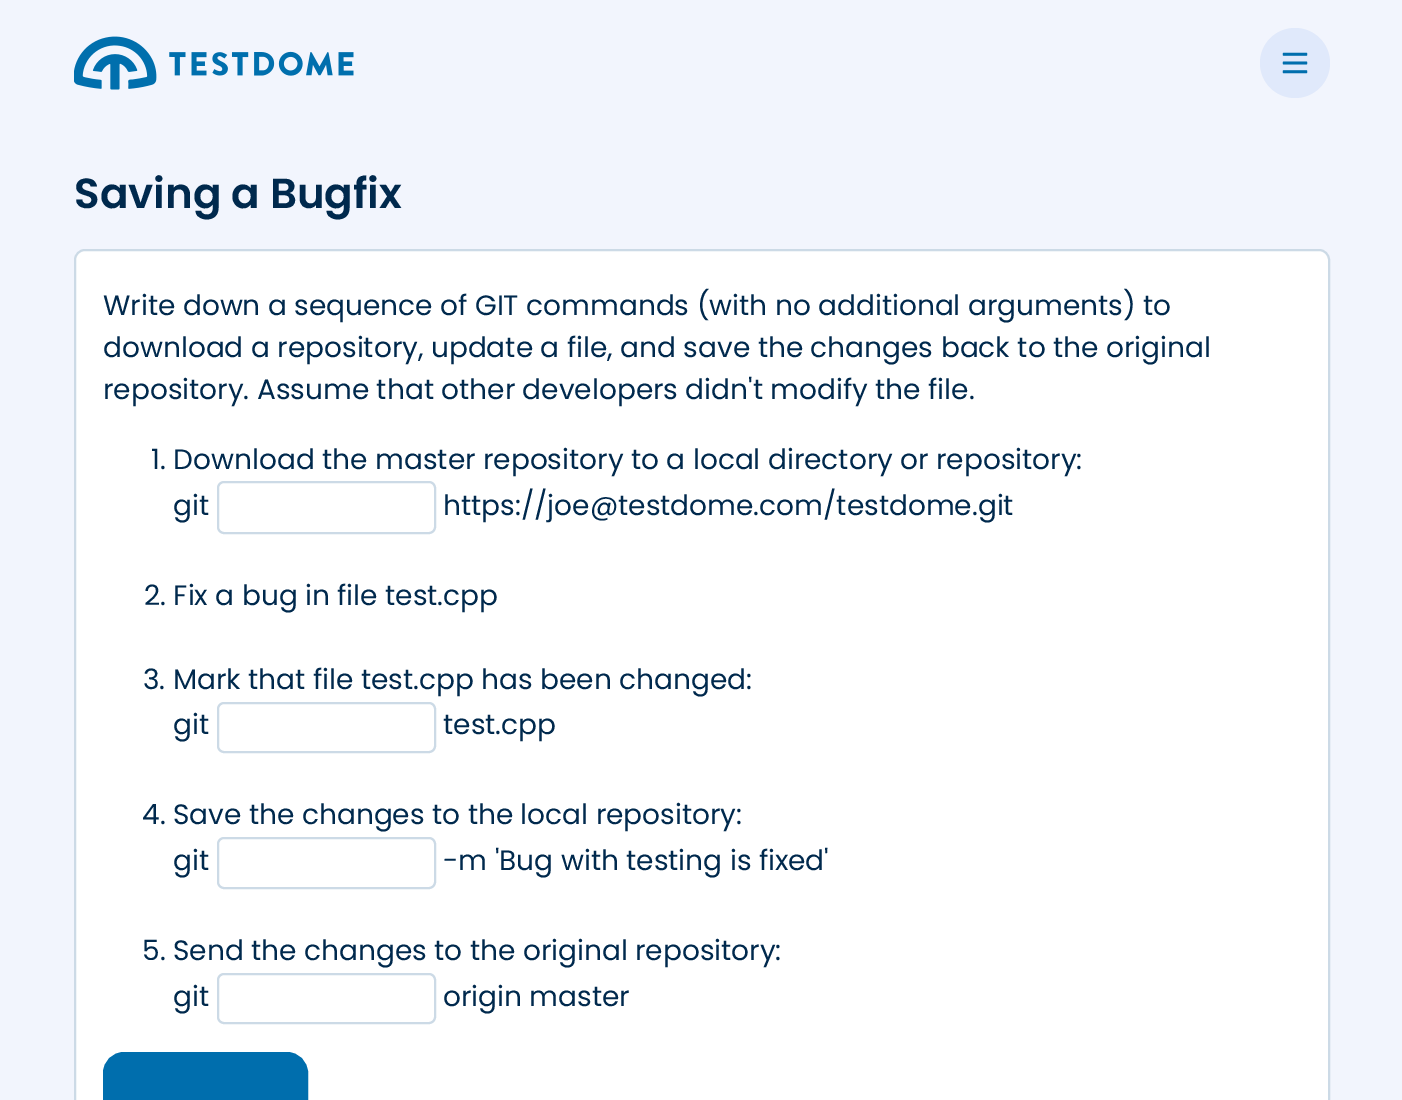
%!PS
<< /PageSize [1402 1100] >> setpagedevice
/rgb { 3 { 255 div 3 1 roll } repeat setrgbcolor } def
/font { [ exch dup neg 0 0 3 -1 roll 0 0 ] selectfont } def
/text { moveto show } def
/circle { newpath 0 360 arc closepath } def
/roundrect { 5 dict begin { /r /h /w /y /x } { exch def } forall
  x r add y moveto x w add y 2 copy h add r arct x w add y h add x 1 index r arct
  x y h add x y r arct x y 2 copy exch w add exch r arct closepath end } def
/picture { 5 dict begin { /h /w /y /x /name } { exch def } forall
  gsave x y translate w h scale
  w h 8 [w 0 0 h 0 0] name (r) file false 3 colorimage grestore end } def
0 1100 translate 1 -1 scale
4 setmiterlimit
242 245 253 rgb
0 0 1402 1100 rectfill
(img_01.rgb) 74 36 280 54 picture
224 233 251 rgb
1295 63 35 circle fill
(img_02.rgb) 1282 52 26 22 picture
255 255 255 rgb
75 250 1254 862 10 roundrect gsave fill grestore
204 218 230 rgb
2 setlinewidth
stroke
218 482 217 51 6 roundrect stroke
218 703 217 49 6 roundrect stroke
218 838 217 50 6 roundrect stroke
218 974 217 49 6 roundrect stroke
0 110 173 rgb
104 1053 203 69 20 roundrect gsave fill grestore
stroke
/Poppins-SemiBold 42 font
0 41 77 rgb
(Saving a Bugfix) 74 208 text
/Poppins-Regular 28 font
(Write down a sequence of GIT commands \(with no additional arguments\) to) 103 315 text
(download a repository, update a file, and save the changes back to the original) 103 357 text
(repository. Assume that other developers didn't modify the file.) 103 399 text
(1. Download the master repository to a local directory or repository:) 151 469 text
(git) 173 515 text
(https://joe@testdome.com/testdome.git) 443 515 text
(2. Fix a bug in file test.cpp) 144 605 text
(3. Mark that file test.cpp has been changed:) 143 689 text
(git) 173 734 text
(test.cpp) 443 734 text
(4. Save the changes to the local repository:) 142 824 text
(git) 173 870 text
(-m 'Bug with testing is fixed') 443 870 text
(5. Send the changes to the original repository:) 142 960 text
(git) 173 1006 text
(origin master) 443 1006 text
showpage
